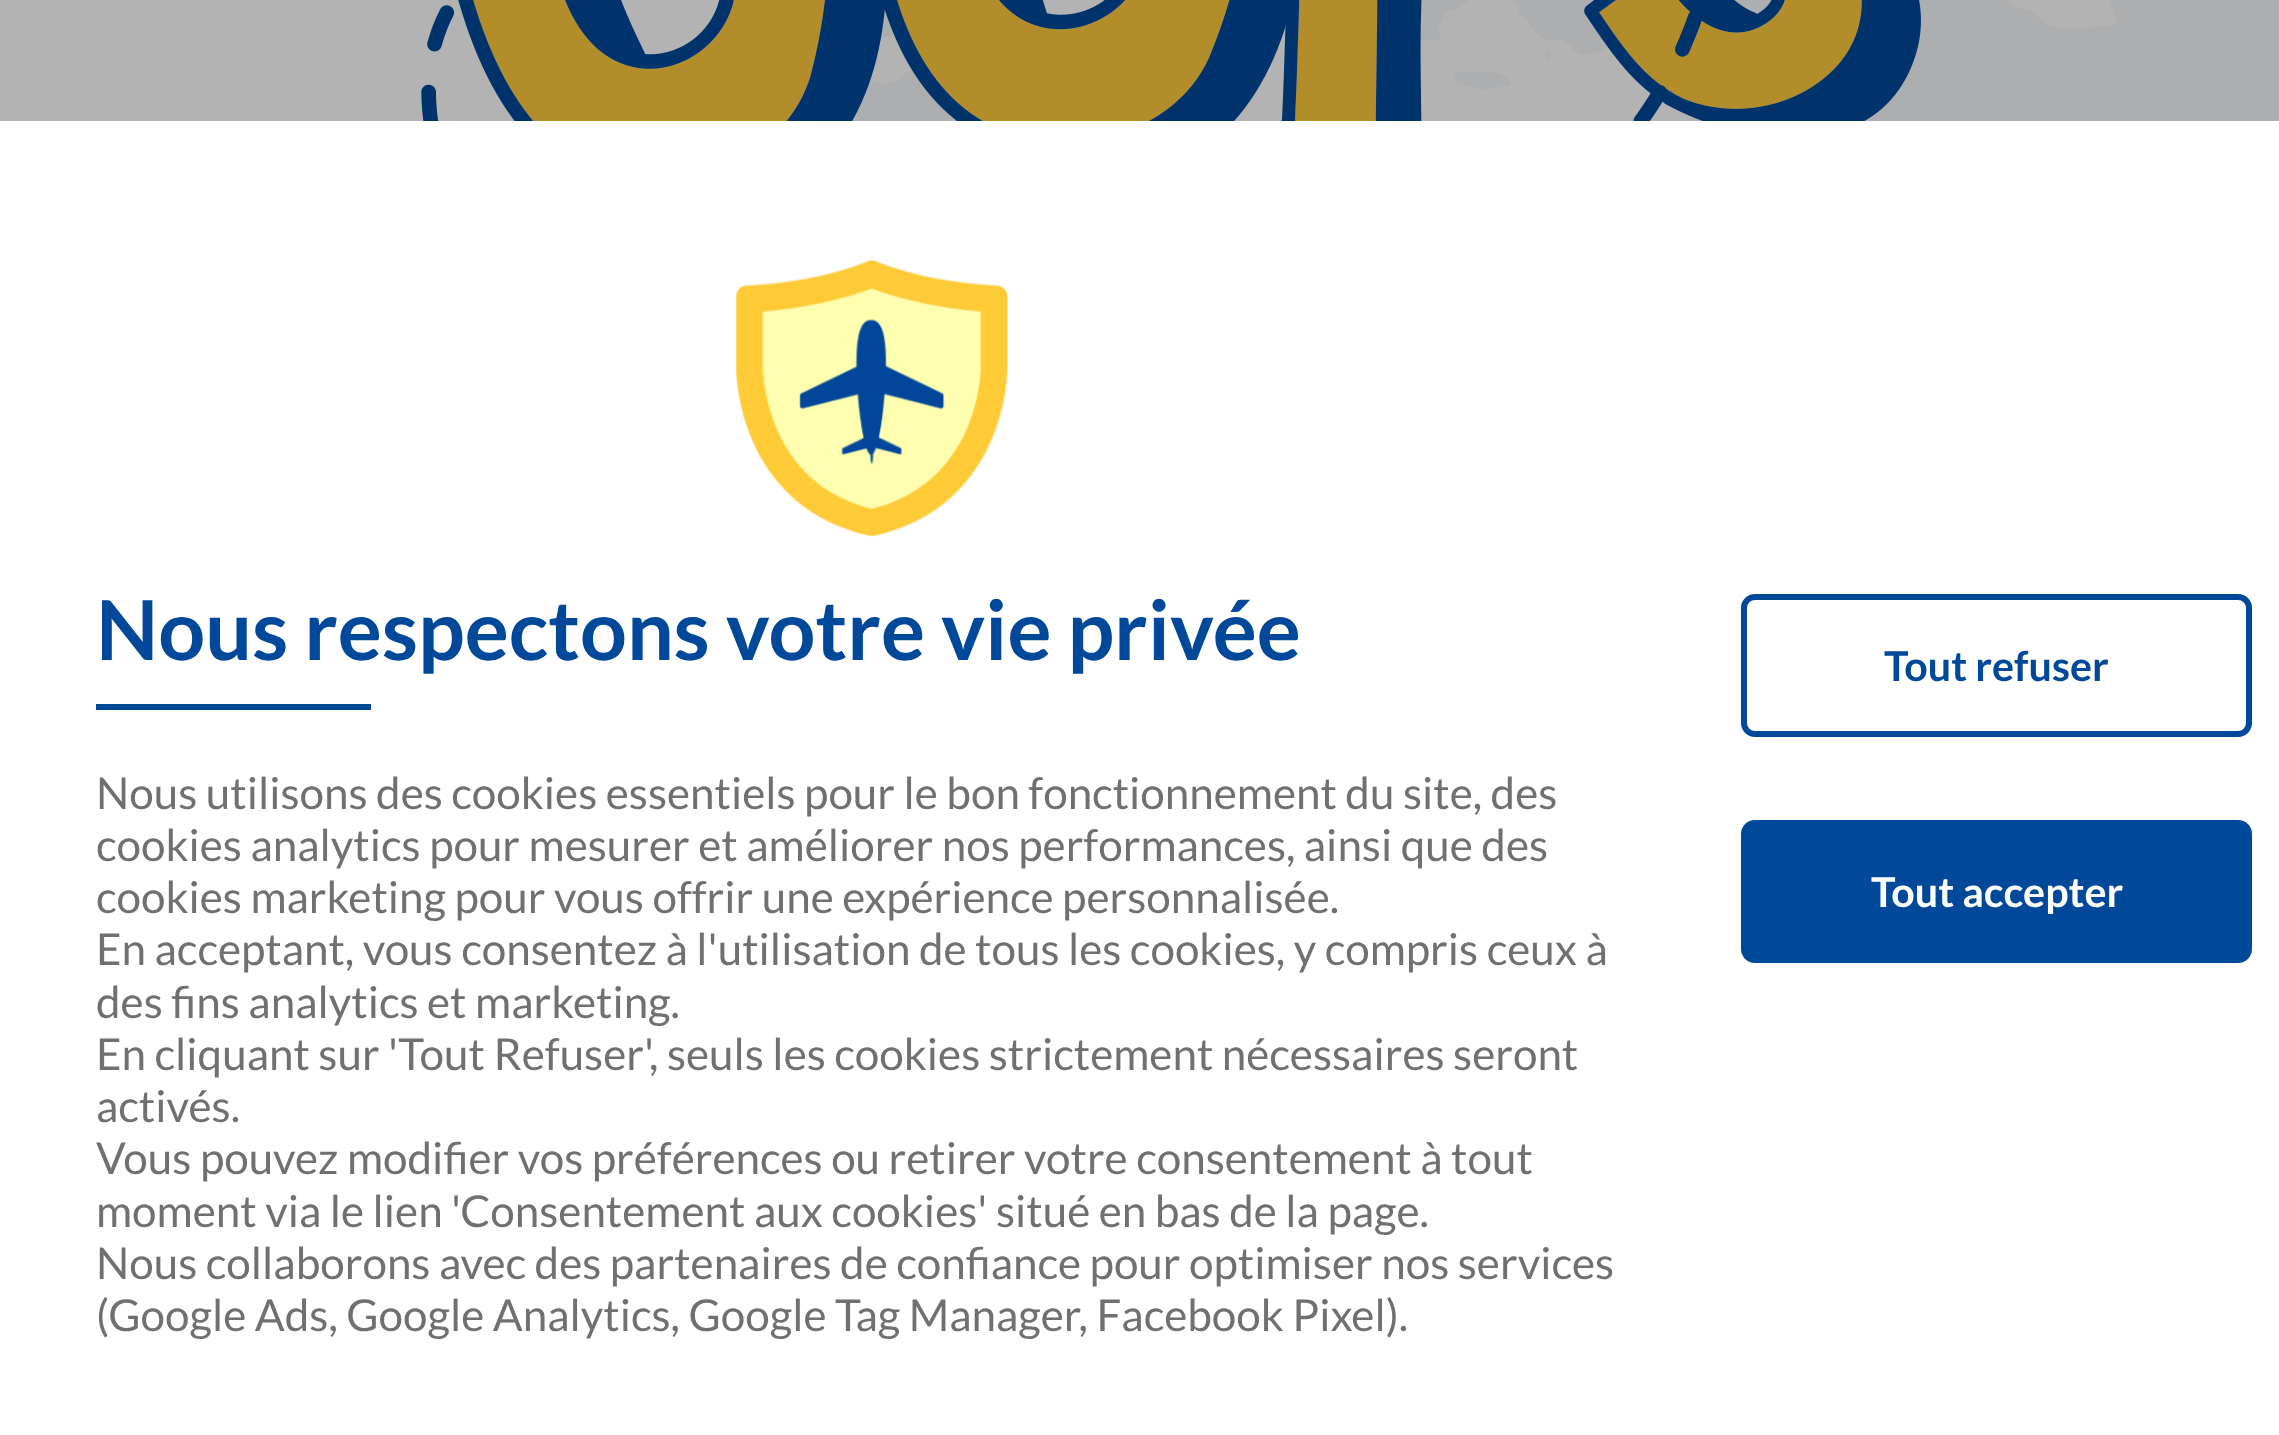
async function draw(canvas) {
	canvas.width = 2279;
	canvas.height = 1435;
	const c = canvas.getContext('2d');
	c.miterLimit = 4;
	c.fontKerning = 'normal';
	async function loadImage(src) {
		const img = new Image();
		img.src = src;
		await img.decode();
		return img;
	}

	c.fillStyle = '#b3b3b3';
	c.fillRect(0, 0, 2279, 1435);
	c.drawImage(await loadImage('img2.png'), 786, 0, 1493, 121);
	c.drawImage(await loadImage('img1.png'), 421, 0, 1500, 121);
	c.fillStyle = '#fff';
	c.fillRect(0, 121, 2279, 1314);
	c.drawImage(await loadImage('img3.png'), 735, 259, 274, 278);
	c.font = 'bold 82.5px Lato';
	c.fillStyle = '#004899';
	c.fillText('Nous respectons votre vie privée', 96, 660);
	c.fillRect(96, 704, 275, 6);
	c.font = '44px Lato';
	c.fillStyle = '#707070';
	for (const [text, x, y] of [
		['Nous utilisons des cookies essentiels pour le bon fonctionnement du site, des', 96, 809],
		['cookies analytics pour mesurer et améliorer nos performances, ainsi que des', 96, 861],
		['cookies marketing pour vous offrir une expérience personnalisée.', 96, 913],
		['En acceptant, vous consentez à l\'utilisation de tous les cookies, y compris ceux à', 96, 965],
		['des fins analytics et marketing.', 96, 1018],
		['En cliquant sur \'Tout Refuser\', seuls les cookies strictement nécessaires seront', 96, 1070],
		['activés.', 96, 1122],
		['Vous pouvez modifier vos préférences ou retirer votre consentement à tout', 96, 1174],
		['moment via le lien \'Consentement aux cookies\' situé en bas de la page.', 96, 1227],
		['Nous collaborons avec des partenaires de confiance pour optimiser nos services', 96, 1279],
		['(Google Ads, Google Analytics, Google Tag Manager, Facebook Pixel).', 96, 1331],
	]) {
		c.fillText(text, x, y);
	}
	c.beginPath();
	c.roundRect(1744, 597, 505, 137, 11);
	c.strokeStyle = '#004899';
	c.lineWidth = 6;
	c.stroke();
	c.font = 'bold 41.25px Lato';
	c.fillStyle = '#004899';
	c.fillText('Tout refuser', 1884, 681);
	c.beginPath();
	c.roundRect(1741, 820, 511, 143, 14);
	c.fill();
	c.fillStyle = '#fff';
	c.fillText('Tout accepter', 1871, 907);
}

draw(document.querySelector('canvas'));
